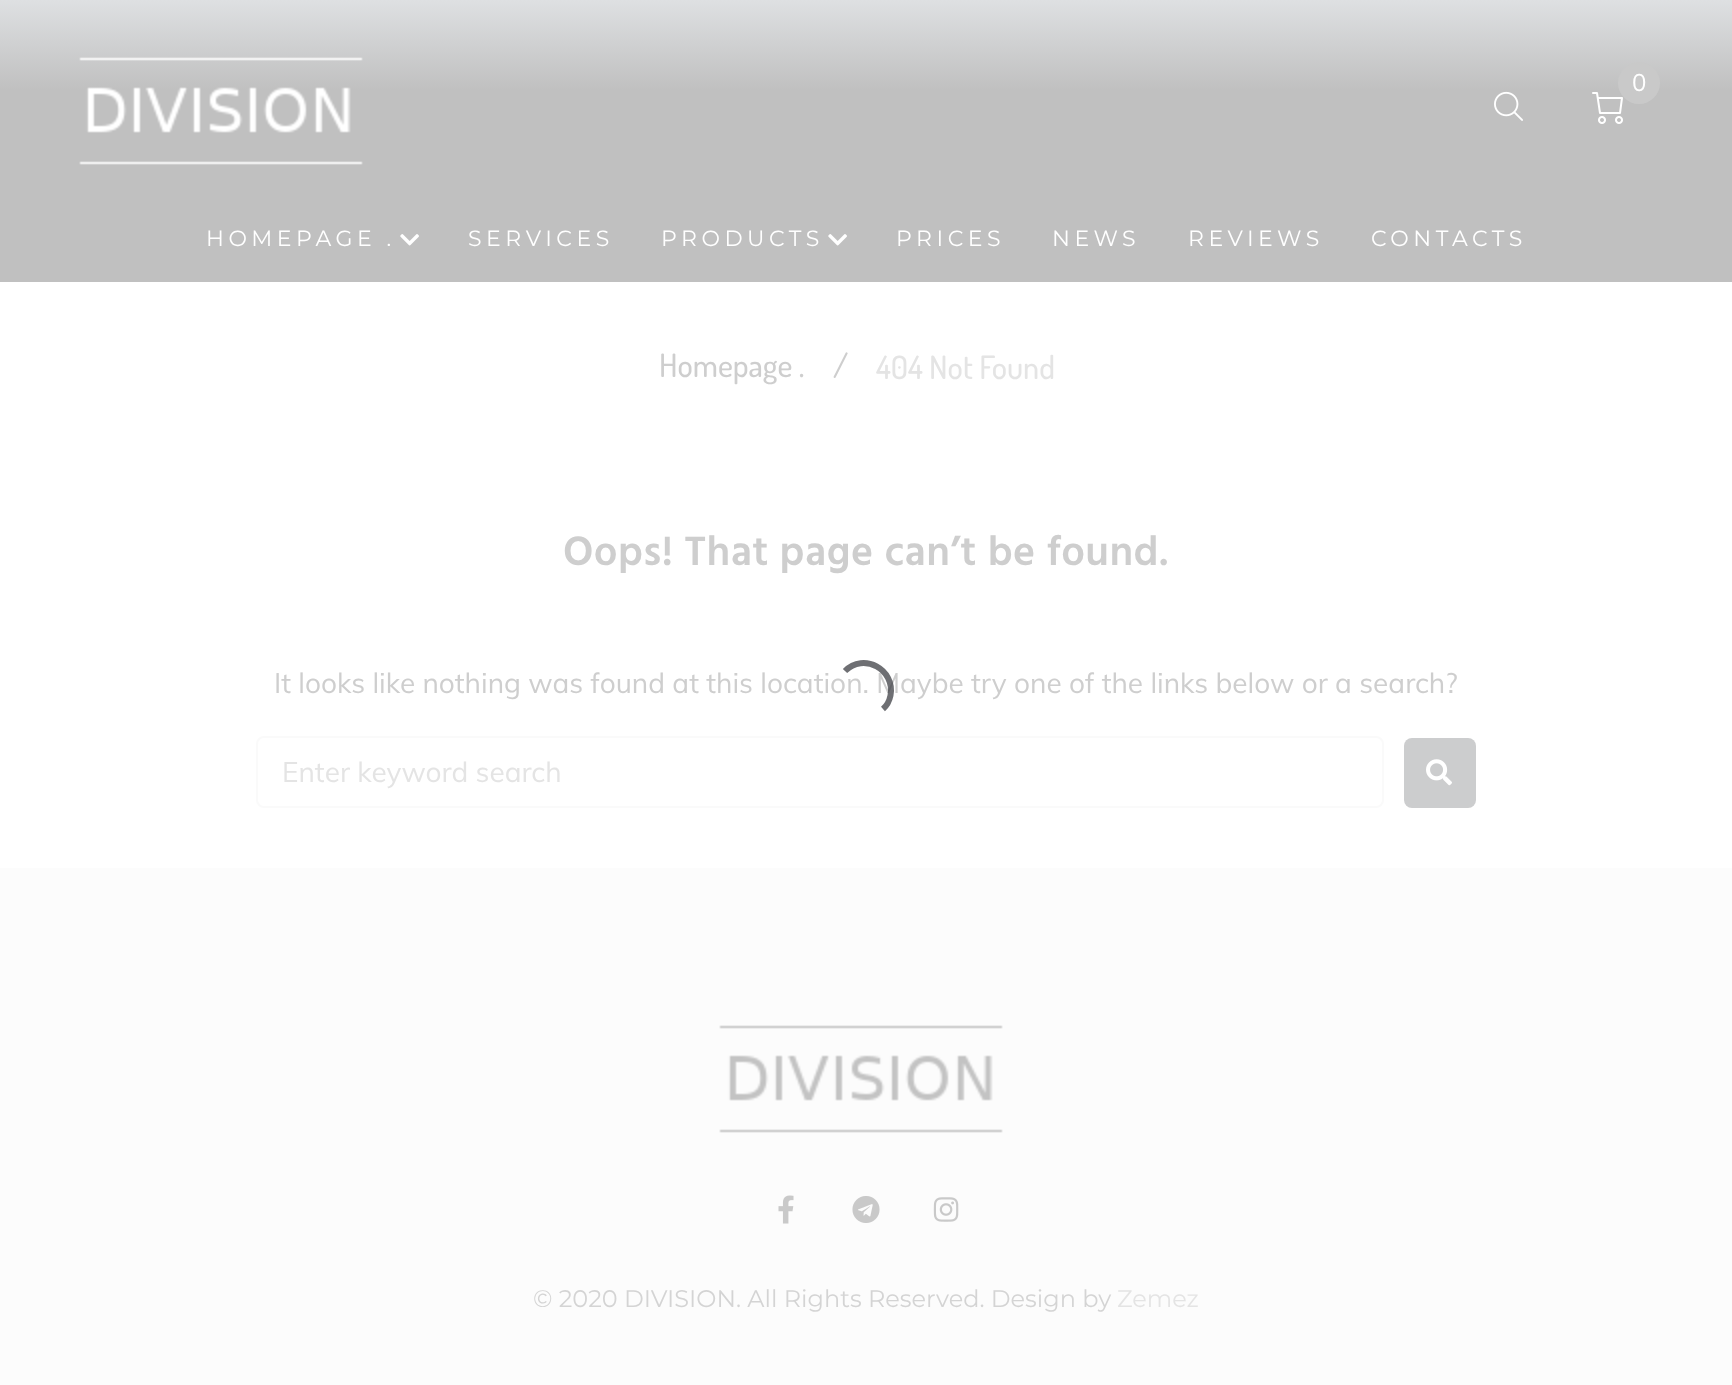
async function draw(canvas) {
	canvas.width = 1732;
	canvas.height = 1385;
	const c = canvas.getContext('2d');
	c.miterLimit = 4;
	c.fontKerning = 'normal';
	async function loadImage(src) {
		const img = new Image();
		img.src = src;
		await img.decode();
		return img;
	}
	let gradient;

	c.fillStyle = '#fff';
	c.fillRect(0, 0, 1732, 1385);
	gradient = c.createLinearGradient(866, 0, 866, 282);
	gradient.addColorStop(0, '#dee0e2');
	gradient.addColorStop(0.32, '#c0c0c0');
	c.fillStyle = gradient;
	c.fillRect(0, 0, 1732, 282);
	c.drawImage(await loadImage('img1.png'), 79, 57, 284, 108);
	c.drawImage(await loadImage('img2.png'), 1592, 92, 31, 32);
	c.fillStyle = '#c9c9c9';
	c.beginPath();
	c.arc(1639, 83, 21, 0, 2 * Math.PI);
	c.fill();
	c.font = '24px Muli';
	c.fillStyle = '#fff';
	c.fillText('0', 1632, 91);
	c.drawImage(await loadImage('img3.png'), 1494, 91, 29, 30);
	c.letterSpacing = '4.5px';
	c.font = '22px Montserrat';
	c.fillText('HOMEPAGE .', 206, 246);
	c.drawImage(await loadImage('img4.png'), 400, 234, 19, 12);
	c.fillText('SERVICES', 468, 246);
	c.fillText('PRODUCTS', 661, 246);
	c.drawImage(await loadImage('img4.png'), 828, 234, 19, 12);
	for (const [text, x, y] of [
		['PRICES', 896, 246],
		['NEWS', 1052, 246],
		['REVIEWS', 1188, 246],
		['CONTACTS', 1371, 246],
	]) {
		c.fillText(text, x, y);
	}
	c.letterSpacing = '0px';
	c.font = '500 32px Dosis';
	c.fillStyle = '#cecece';
	c.fillText('Homepage .', 659, 377);
	c.fillText('/', 833, 377);
	c.fillStyle = '#e4e4e4';
	c.fillText('404 Not Found', 876, 379);
	c.letterSpacing = '0.4px';
	c.font = '600 42px Hind';
	c.fillStyle = '#cecece';
	c.fillText('Oops! That page can’t be found.', 563, 565);
	c.letterSpacing = '0px';
	c.font = '28px Muli';
	c.fillText('It looks like nothing was found at this location. Maybe try one of the links below or a search?', 274, 693);
	c.beginPath();
	c.roundRect(257, 737, 1126, 70, 7);
	c.strokeStyle = '#fafafa';
	c.lineWidth = 2;
	c.stroke();
	c.fillStyle = '#e4e4e4';
	c.fillText('Enter keyword search', 282, 782);
	c.fillStyle = '#cccdce';
	c.beginPath();
	c.roundRect(1404, 738, 72, 70, 8);
	c.fill();
	c.drawImage(await loadImage('img5.png'), 1426, 759, 26, 27);
	c.fillStyle = '#fcfcfc';
	c.fillRect(0, 868, 1732, 517);
	c.drawImage(await loadImage('img6.png'), 719, 1025, 284, 108);
	c.drawImage(await loadImage('img7.png'), 778, 1195, 16, 29);
	c.drawImage(await loadImage('img8.png'), 852, 1196, 28, 27);
	c.drawImage(await loadImage('img9.png'), 933, 1197, 26, 25);
	c.font = '24px Montserrat';
	c.fillStyle = '#d4d4d4';
	c.fillText('© 2020 DIVISION. All Rights Reserved. Design by', 533, 1307);
	c.fillStyle = '#e4e4e4';
	c.fillText('Zemez', 1117, 1307);
	c.beginPath();
	c.moveTo(845, 671);
	c.bezierCurveTo(863.5, 652, 895.5, 669.5, 890.5, 695.5);
	c.bezierCurveTo(889.5, 700.5, 887, 705.5, 883, 709);
	c.strokeStyle = '#3b3d42bd';
	c.lineWidth = 6;
	c.stroke();
}

draw(document.querySelector('canvas'));
